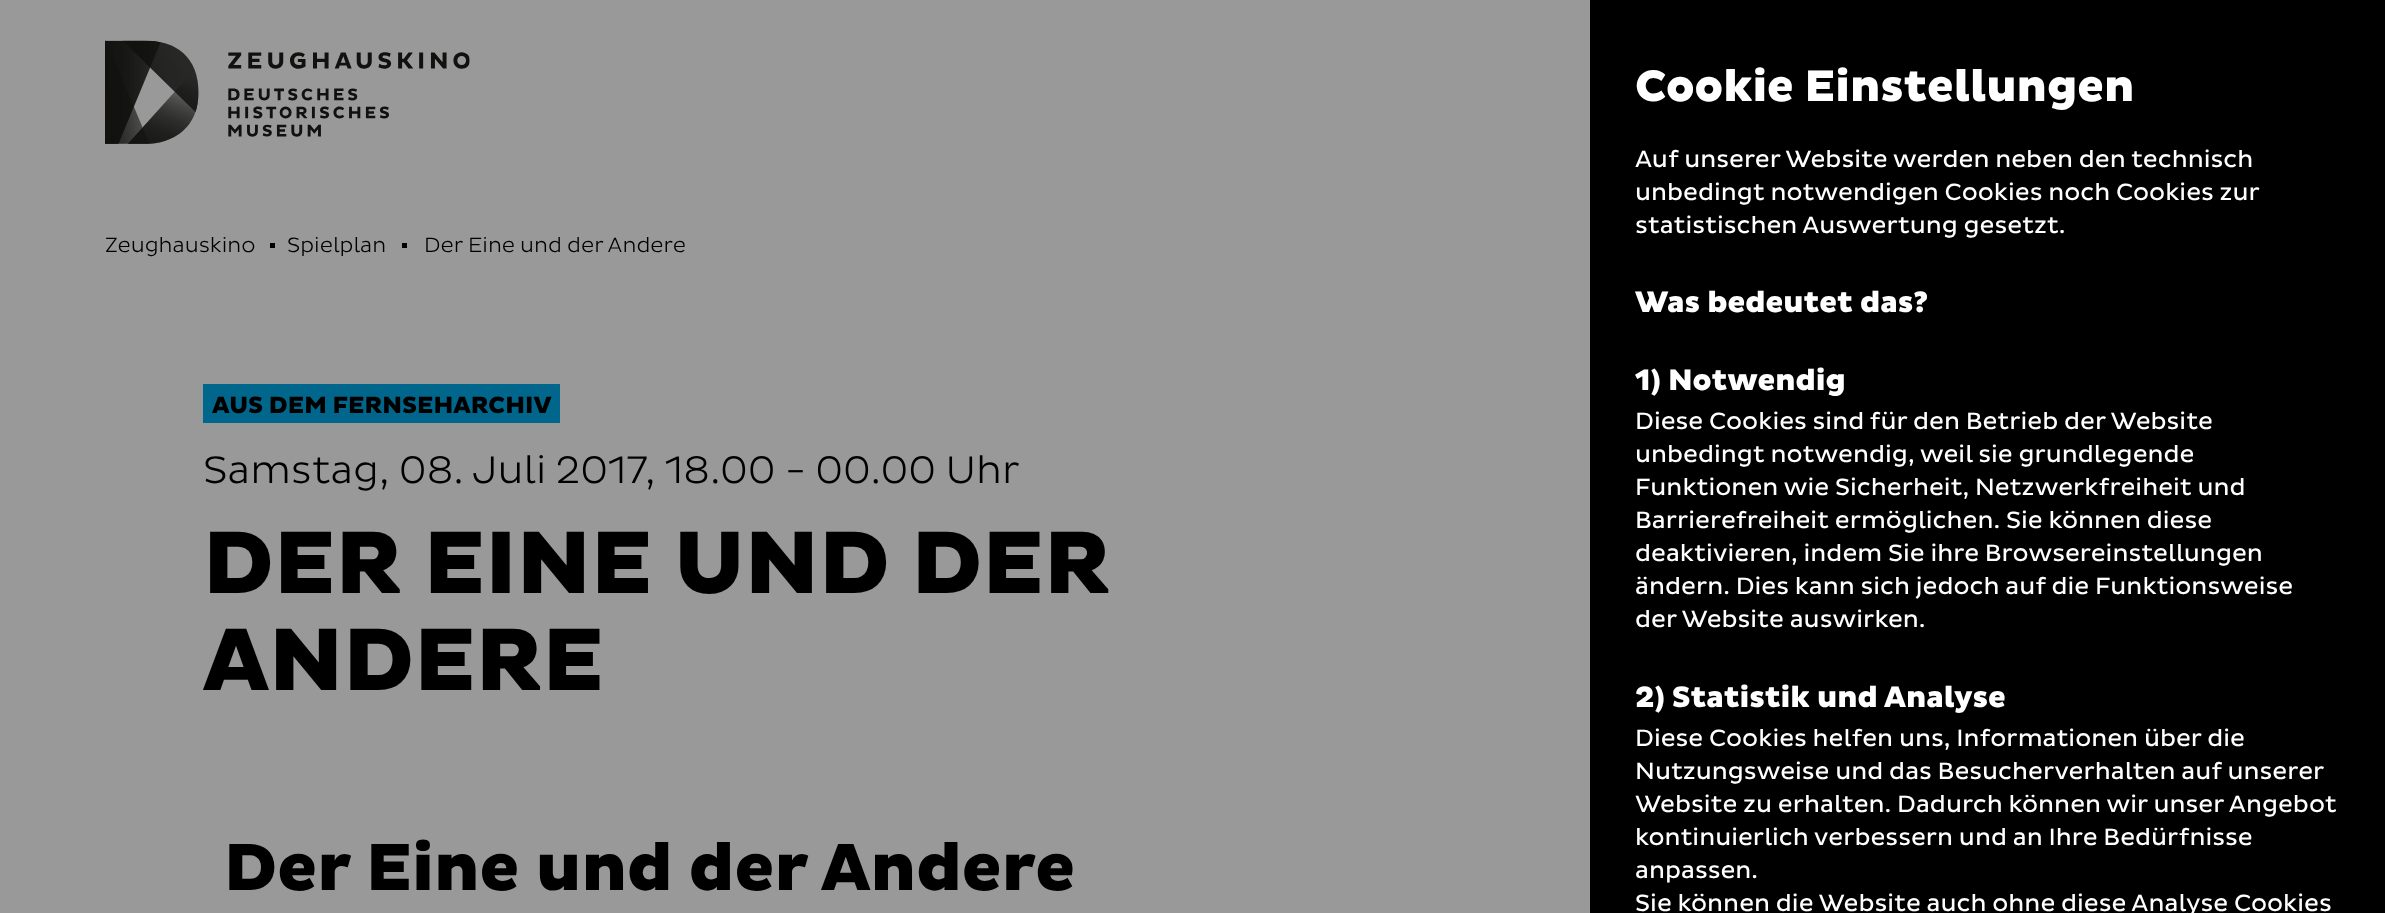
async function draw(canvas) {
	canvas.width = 2385;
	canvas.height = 913;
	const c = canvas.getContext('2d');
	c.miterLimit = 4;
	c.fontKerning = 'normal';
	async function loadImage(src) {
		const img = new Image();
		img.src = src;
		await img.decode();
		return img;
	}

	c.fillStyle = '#999';
	c.fillRect(0, 0, 2385, 913);
	c.drawImage(await loadImage('img1.png'), 105, 40, 365, 104);
	c.fillStyle = '#000';
	c.fillRect(1590, 0, 795, 913);
	c.font = '900 45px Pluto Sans';
	c.fillStyle = '#fff';
	c.fillText('Cookie Einstellungen', 1635, 101);
	c.font = '24px Pluto Sans';
	for (const [text, x, y] of [
		['Auf unserer Website werden neben den technisch', 1635, 167],
		['unbedingt notwendigen Cookies noch Cookies zur', 1635, 200],
		['statistischen Auswertung gesetzt.', 1635, 233],
	]) {
		c.fillText(text, x, y);
	}
	c.font = '900 30px Pluto Sans';
	c.fillText('Was bedeutet das?', 1635, 312);
	c.fillText('1) Notwendig', 1635, 390);
	c.font = '24px Pluto Sans';
	for (const [text, x, y] of [
		['Diese Cookies sind für den Betrieb der Website', 1635, 429],
		['unbedingt notwendig, weil sie grundlegende', 1635, 462],
		['Funktionen wie Sicherheit, Netzwerkfreiheit und', 1635, 495],
		['Barrierefreiheit ermöglichen. Sie können diese', 1635, 528],
		['deaktivieren, indem Sie ihre Browsereinstellungen', 1635, 561],
		['ändern. Dies kann sich jedoch auf die Funktionsweise', 1635, 594],
		['der Website auswirken.', 1635, 627],
	]) {
		c.fillText(text, x, y);
	}
	c.font = '900 30px Pluto Sans';
	c.fillText('2) Statistik und Analyse', 1635, 707);
	c.font = '24px Pluto Sans';
	for (const [text, x, y] of [
		['Diese Cookies helfen uns, Informationen über die', 1635, 746],
		['Nutzungsweise und das Besucherverhalten auf unserer', 1635, 779],
		['Website zu erhalten. Dadurch können wir unser Angebot', 1635, 812],
		['kontinuierlich verbessern und an Ihre Bedürfnisse', 1635, 845],
		['anpassen.', 1635, 878],
		['Sie können die Website auch ohne diese Analyse Cookies', 1635, 911],
	]) {
		c.fillText(text, x, y);
	}
	c.font = '300 21px Pluto Sans';
	c.fillStyle = '#000';
	c.fillText('Zeughauskino', 105, 252);
	c.fillRect(270, 243, 5, 5);
	c.fillText('Spielplan', 287, 252);
	c.fillRect(402, 243, 5, 5);
	c.fillText('Der Eine und der Andere', 424, 252);
	c.fillStyle = '#00668b';
	c.fillRect(203, 384, 357, 39);
	c.font = '900 24px Pluto Sans';
	c.fillStyle = '#000';
	c.fillText('AUS DEM FERNSEHARCHIV', 212, 413);
	c.font = '300 39px Pluto Sans';
	c.fillText('Samstag, 08. Juli 2017, 18.00 - 00.00 Uhr', 203, 483);
	c.font = '900 90px Pluto Sans';
	c.fillText('DER EINE UND DER', 203, 593);
	c.fillText('ANDERE', 203, 690);
	c.font = '900 67.5px Pluto Sans';
	c.fillText('Der Eine und der Andere', 224, 890);
}

draw(document.querySelector('canvas'));
